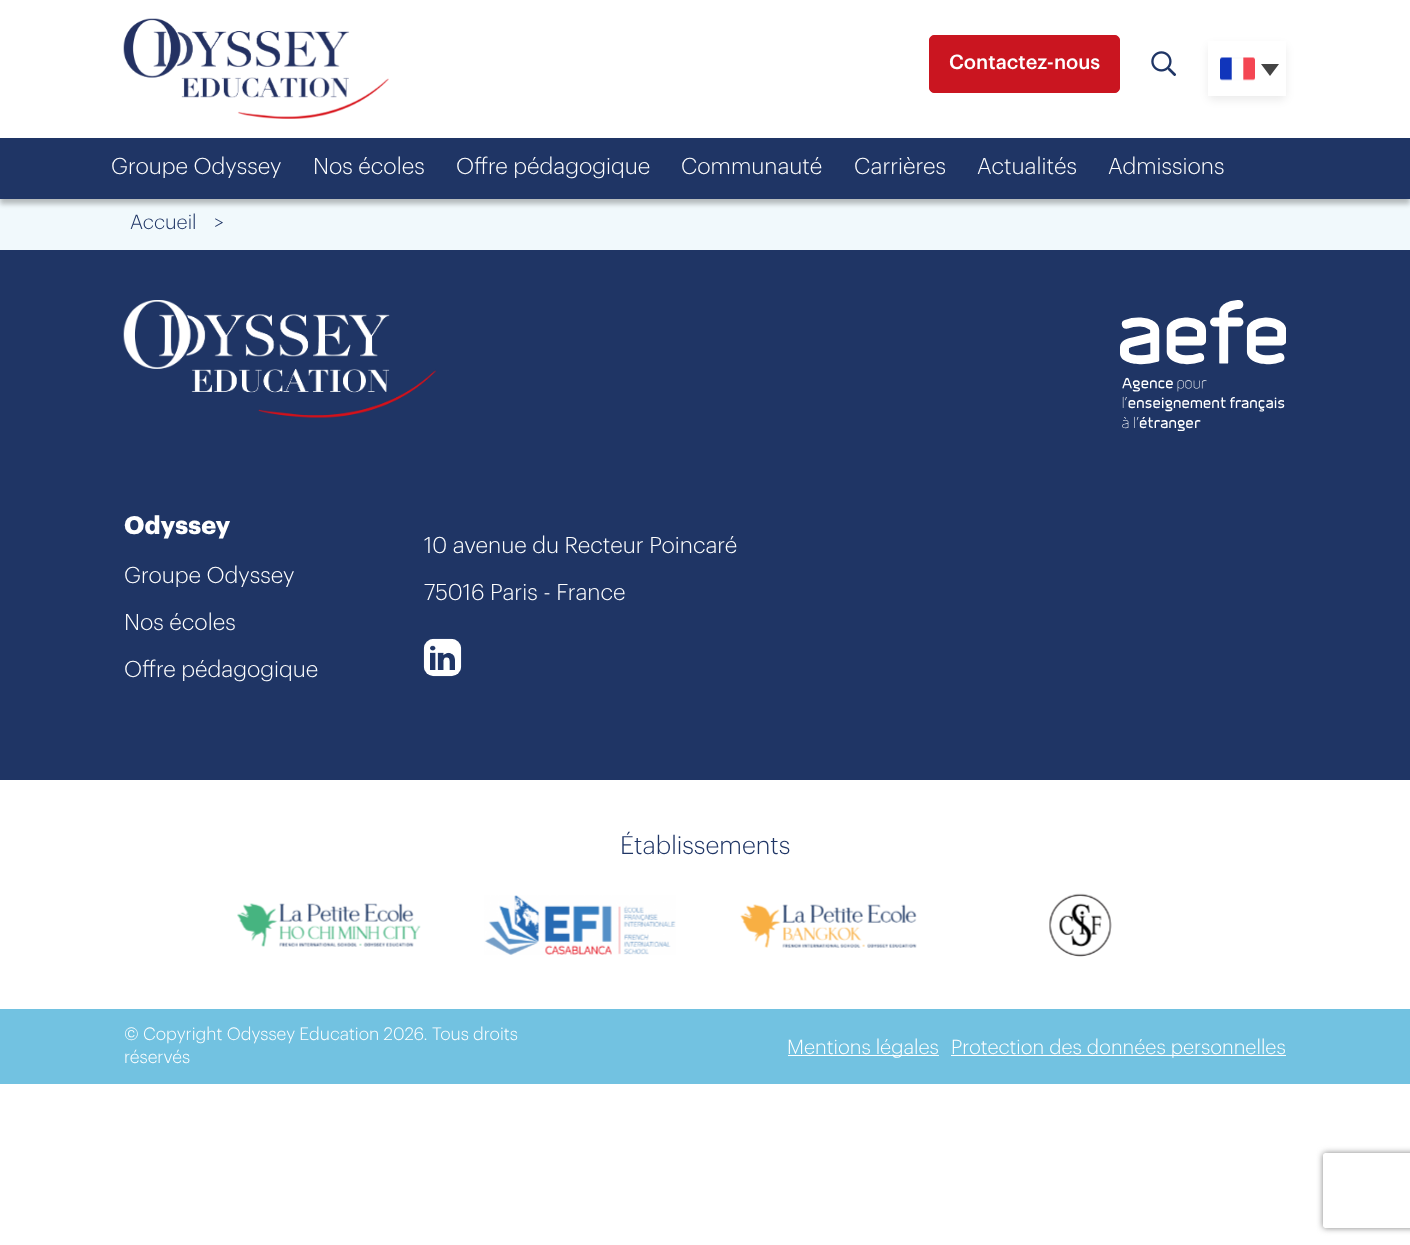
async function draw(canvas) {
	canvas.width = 1410;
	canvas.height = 1245;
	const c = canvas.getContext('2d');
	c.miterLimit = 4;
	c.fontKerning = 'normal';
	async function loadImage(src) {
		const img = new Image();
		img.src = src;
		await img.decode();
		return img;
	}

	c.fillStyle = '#fff';
	c.fillRect(0, 0, 1410, 1245);
	c.drawImage(await loadImage('img1.png'), 123, 18, 266, 101);
	c.fillStyle = '#ca1520';
	c.beginPath();
	c.roundRect(929.5, 35.5, 190, 57, 4.5);
	c.fill();
	c.strokeStyle = '#ca1520';
	c.stroke();
	c.font = '500 20px Graphik';
	c.fillStyle = '#fff';
	c.fillText('Contactez-nous', 949, 69);
	c.drawImage(await loadImage('img2.png'), 1151, 51, 25, 25);
	c.fillStyle = '#00000014';
	c.filter = 'blur(4px)';
	c.beginPath();
	c.roundRect(1208, 45, 78, 55, 5);
	c.fill();
	c.filter = 'none';
	c.fillStyle = '#fff';
	c.fillRect(1208, 41, 78, 55);
	c.drawImage(await loadImage('img3.png'), 1220, 57, 35, 24);
	c.fillStyle = '#444';
	c.beginPath();
	c.moveTo(1261, 64);
	c.lineTo(1279, 64);
	c.lineTo(1270, 76);
	c.closePath();
	c.fill();
	c.fillStyle = '#f1f9fc';
	c.fillRect(0, 199, 1410, 51);
	c.fillStyle = '#00000040';
	c.filter = 'blur(2.5px)';
	c.beginPath();
	c.rect(0, 143, 1410, 61);
	c.fill();
	c.filter = 'none';
	c.fillStyle = '#1f3565';
	c.fillRect(0, 138, 1410, 61);
	c.font = '300 22.5px Graphik';
	c.fillStyle = '#fff';
	for (const [text, x, y] of [
		['Groupe Odyssey', 111, 174],
		['Nos écoles', 313, 174],
		['Offre pédagogique', 456, 174],
		['Communauté', 681, 174],
		['Carrières', 854, 174],
		['Actualités', 977, 174],
		['Admissions', 1108, 174],
	]) {
		c.fillText(text, x, y);
	}
	c.font = '300 20px Graphik';
	c.fillStyle = '#1f3565';
	c.fillText('Accueil', 130, 229);
	c.fillText('>', 214, 229);
	c.fillRect(0, 250, 1410, 530);
	c.drawImage(await loadImage('img4.png'), 123, 300, 314, 118);
	c.drawImage(await loadImage('img5.png'), 1120, 300, 166, 131);
	c.font = 'bold 25px Graphik';
	c.fillStyle = '#fff';
	c.fillText('Odyssey', 124, 534);
	c.font = '300 22.5px Graphik';
	for (const [text, x, y] of [
		['Groupe Odyssey', 124, 583],
		['Nos écoles', 124, 630],
		['Offre pédagogique', 124, 677],
		['10 avenue du Recteur Poincaré', 424, 553],
		['75016 Paris - France', 424, 600],
	]) {
		c.fillText(text, x, y);
	}
	c.drawImage(await loadImage('img6.png'), 423, 638, 39, 39);
	c.font = '300 25px Graphik';
	c.fillStyle = '#1f3565';
	c.fillText('Établissements', 620, 854);
	c.drawImage(await loadImage('img7.png'), 237, 903, 184, 44);
	c.drawImage(await loadImage('img8.png'), 484, 895, 192, 60);
	c.drawImage(await loadImage('img9.png'), 740, 904, 177, 44);
	c.drawImage(await loadImage('img10.png'), 1049, 893, 63, 64);
	c.fillStyle = '#72c2e1';
	c.fillRect(0, 1009, 1410, 75);
	c.font = '300 17.5px Graphik';
	c.fillStyle = '#fff';
	c.fillText('© Copyright Odyssey Education 2026. Tous droits', 124, 1040);
	c.fillText('réservés', 124, 1063);
	c.fillRect(788, 1055, 151, 1);
	c.font = '300 20px Graphik';
	c.fillText('Mentions légales', 787, 1054);
	c.fillRect(951, 1055, 335, 1);
	c.fillText('Protection des données personnelles', 951, 1054);
	c.save();
	c.beginPath();
	c.moveTo(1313, 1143);
	c.lineTo(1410, 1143);
	c.lineTo(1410, 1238);
	c.lineTo(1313, 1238);
	c.closePath();
	c.moveTo(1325.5, 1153);
	c.lineTo(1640.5, 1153);
	c.bezierCurveTo(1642, 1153, 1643, 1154, 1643, 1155.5);
	c.lineTo(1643, 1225.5);
	c.bezierCurveTo(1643, 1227, 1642, 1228, 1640.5, 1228);
	c.lineTo(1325.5, 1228);
	c.bezierCurveTo(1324, 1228, 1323, 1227, 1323, 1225.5);
	c.lineTo(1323, 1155.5);
	c.bezierCurveTo(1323, 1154, 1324, 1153, 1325.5, 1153);
	c.closePath();
	c.clip('evenodd');
	c.fillStyle = '#808080';
	c.filter = 'blur(3px)';
	c.beginPath();
	c.roundRect(1323, 1153, 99, 75, 2.5);
	c.fill();
	c.filter = 'none';
	c.restore();
}

draw(document.querySelector('canvas'));
